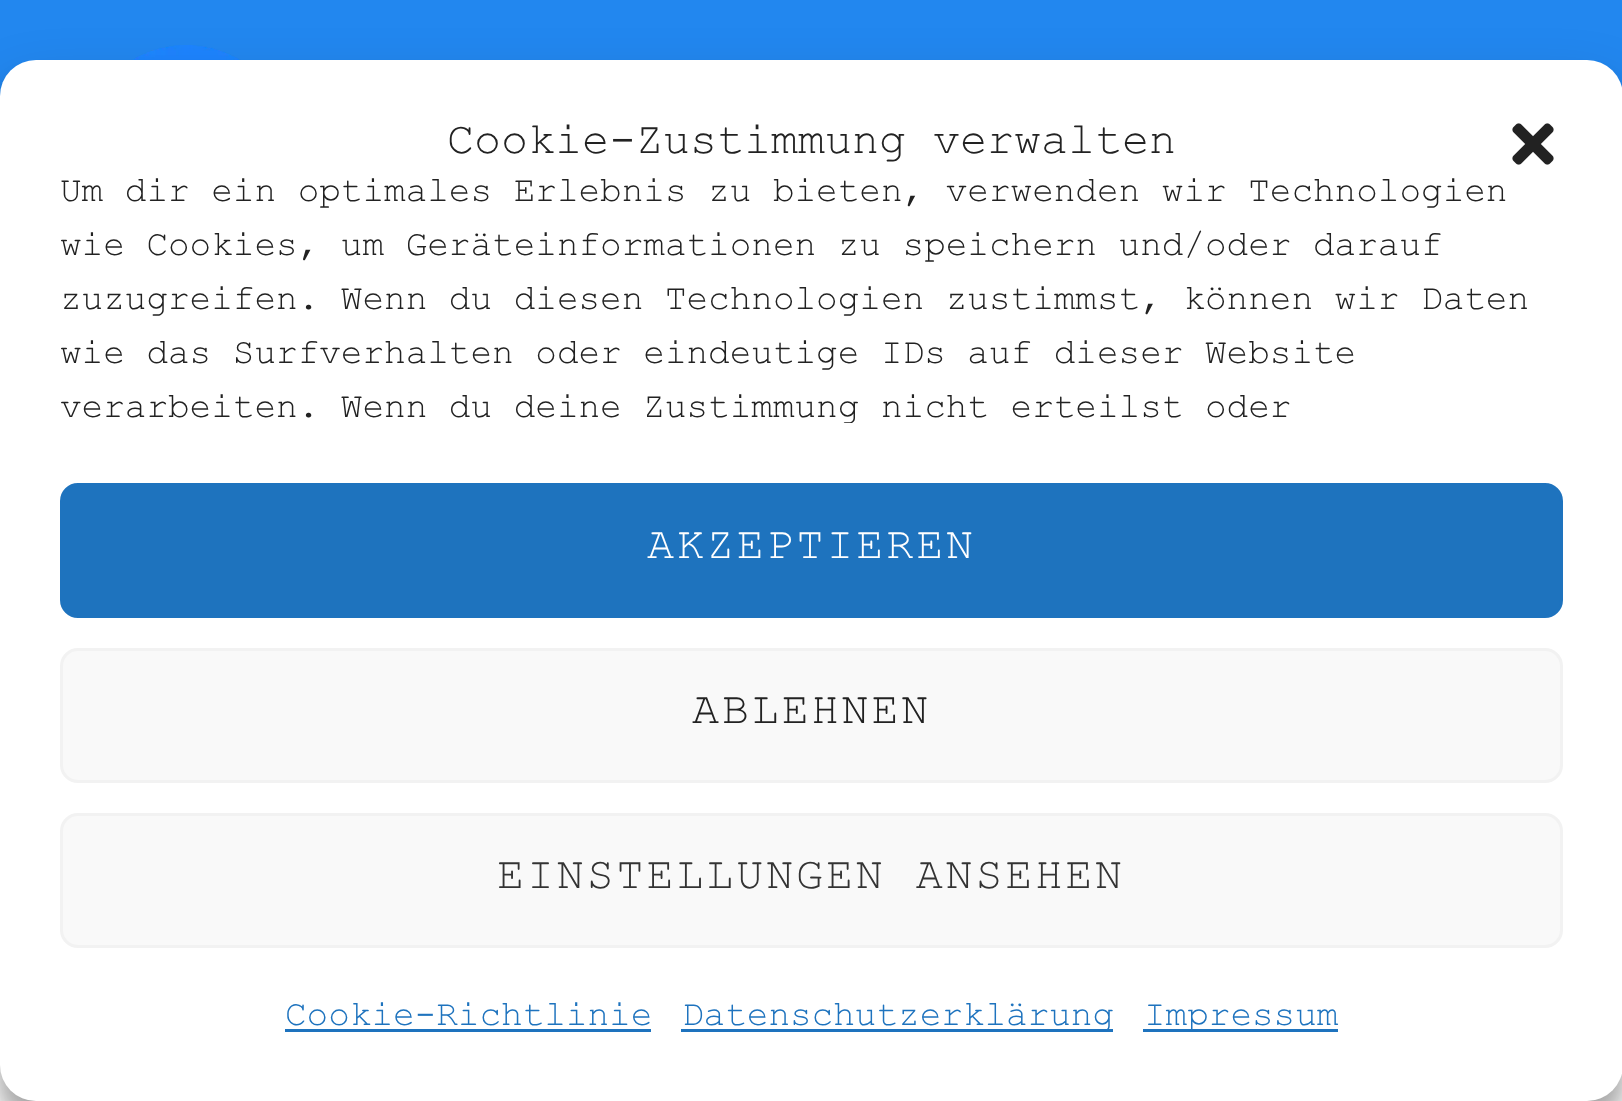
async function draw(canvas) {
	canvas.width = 1622;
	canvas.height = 1101;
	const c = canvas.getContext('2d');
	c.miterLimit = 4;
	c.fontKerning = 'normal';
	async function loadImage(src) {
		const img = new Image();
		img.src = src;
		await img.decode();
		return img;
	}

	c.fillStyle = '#fff';
	c.fillRect(0, 0, 1622, 1101);
	c.fillStyle = '#2287ef';
	c.fillRect(0, 0, 1622, 96);
	c.drawImage(await loadImage('img1.png'), 131, 45, 110, 15);
	c.fillStyle = '#0000003b';
	c.filter = 'blur(9px)';
	c.beginPath();
	c.roundRect(0, 78, 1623, 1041, 36);
	c.fill();
	c.filter = 'none';
	c.fillStyle = '#00000030';
	c.filter = 'blur(30px)';
	c.beginPath();
	c.roundRect(0, 90, 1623, 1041, 36);
	c.fill();
	c.filter = 'none';
	c.fillStyle = '#fff';
	c.beginPath();
	c.roundRect(0, 60, 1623, 1041, 36);
	c.fill();
	c.font = '45px Courier New';
	c.fillStyle = '#222';
	c.fillText('Cookie-Zustimmung verwalten', 447, 153);
	c.drawImage(await loadImage('img2.png'), 1512, 123, 42, 42);
	c.font = '36px Courier New';
	for (const [text, x, y] of [
		['Um dir ein optimales Erlebnis zu bieten, verwenden wir Technologien', 60, 201],
		['wie Cookies, um Geräteinformationen zu speichern und/oder darauf', 60, 255],
		['zuzugreifen. Wenn du diesen Technologien zustimmst, können wir Daten', 60, 309],
		['wie das Surfverhalten oder eindeutige IDs auf dieser Website', 60, 363],
	]) {
		c.fillText(text, x, y);
	}
	c.save();
	c.beginPath();
	c.rect(60, 165, 1503, 258);
	c.clip();
	c.fillText('verarbeiten. Wenn du deine Zustimmung nicht erteilst oder', 60, 417);
	c.restore();
	c.fillStyle = '#1e73be';
	c.beginPath();
	c.roundRect(61.5, 484.5, 1500, 132, 16.5);
	c.fill();
	c.strokeStyle = '#1e73be';
	c.lineWidth = 3;
	c.stroke();
	c.letterSpacing = '2.9px';
	c.font = '45px Courier New';
	c.fillStyle = '#fff';
	c.fillText('AKZEPTIEREN', 647, 558);
	c.fillStyle = '#f9f9f9';
	c.beginPath();
	c.roundRect(61.5, 649.5, 1500, 132, 16.5);
	c.fill();
	c.strokeStyle = '#f2f2f2';
	c.stroke();
	c.fillStyle = '#222';
	c.fillText('ABLEHNEN', 692, 723);
	c.fillStyle = '#f9f9f9';
	c.beginPath();
	c.roundRect(61.5, 814.5, 1500, 132, 16.5);
	c.fill();
	c.stroke();
	c.fillStyle = '#333';
	c.fillText('EINSTELLUNGEN ANSEHEN', 497, 888);
	c.letterSpacing = '0px';
	c.font = '36px Courier New';
	c.fillStyle = '#1e73be';
	c.fillText('Cookie-Richtlinie', 285, 1025);
	c.fillRect(285, 1029, 366, 3);
	c.fillRect(681, 1029, 432, 3);
	c.fillText('Datenschutzerklärung', 682, 1025);
	c.fillRect(1143, 1029, 195, 3);
	c.fillText('Impressum', 1144, 1025);
}

draw(document.querySelector('canvas'));
